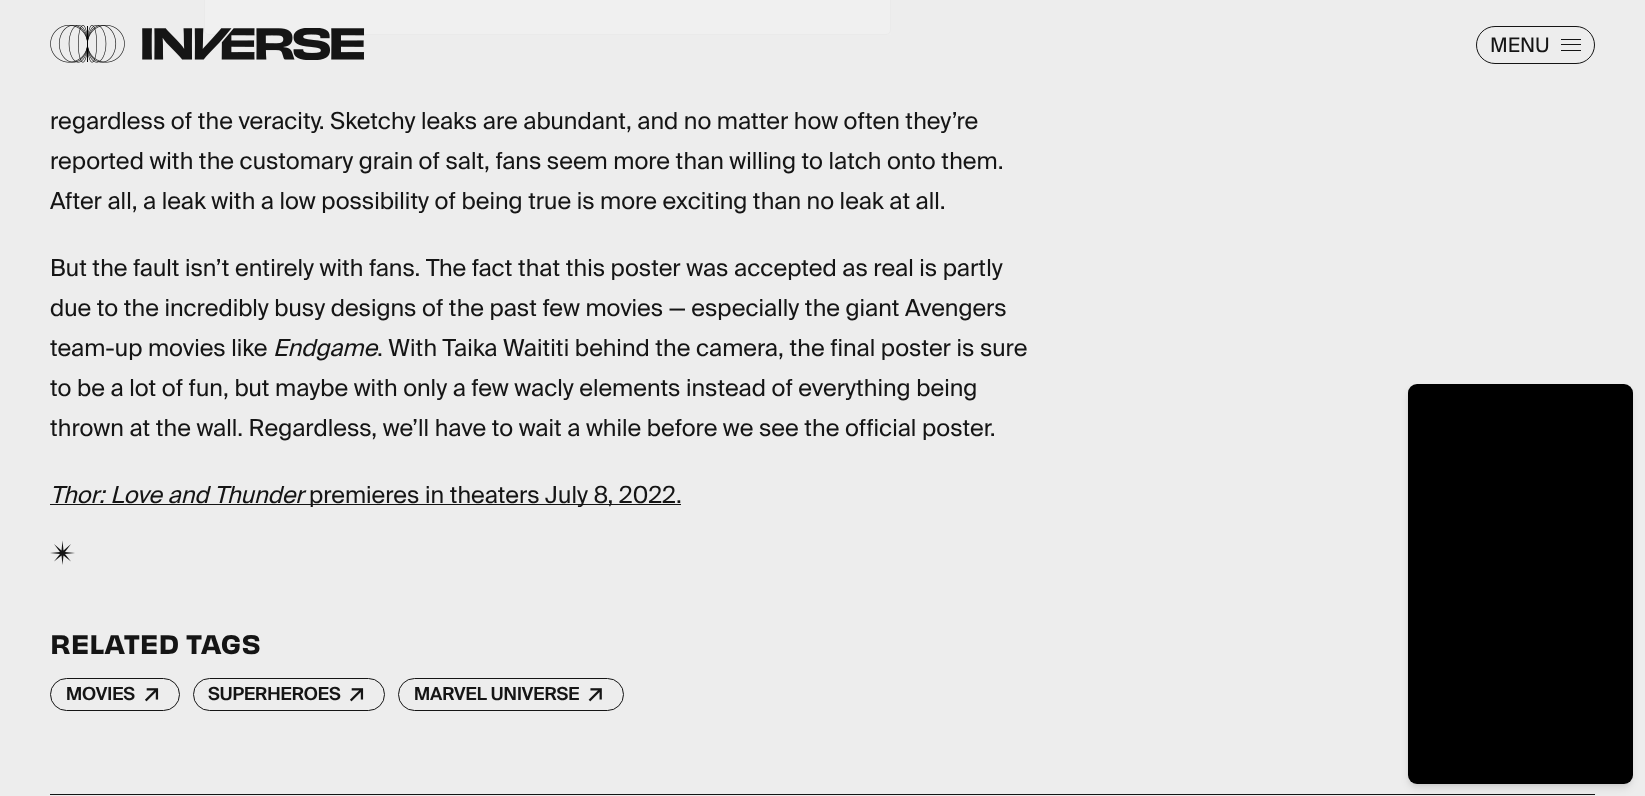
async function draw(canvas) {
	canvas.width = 1645;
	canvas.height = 796;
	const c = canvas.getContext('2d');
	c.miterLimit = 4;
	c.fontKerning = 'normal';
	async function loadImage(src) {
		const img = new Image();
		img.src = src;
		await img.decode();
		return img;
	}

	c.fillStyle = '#ededed';
	c.fillRect(0, 0, 1645, 796);
	c.fillStyle = '#fafafa';
	c.beginPath();
	c.roundRect(204.5, -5.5, 686, 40, 4.5);
	c.fill();
	c.strokeStyle = '#dbdbdb';
	c.stroke();
	c.fillStyle = '#edededcc';
	c.fillRect(204, 0, 687, 35);
	c.drawImage(await loadImage('img1.png'), 50, 25, 75, 38);
	c.drawImage(await loadImage('img2.png'), 142, 28, 223, 32);
	c.beginPath();
	c.roundRect(1476.5, 26.5, 118, 37, 18.5);
	c.strokeStyle = '#151515';
	c.stroke();
	c.font = '20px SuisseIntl';
	c.fillStyle = '#151515';
	c.fillText('MENU', 1490, 52);
	for (const [x, y, w, h, color] of [
		[1561, 39, 20, 1, '#151515'],
		[1561, 50, 20, 1, '#151515'],
		[1561, 44, 20, 1, '#151515'],
	]) {
		c.fillStyle = color;
		c.fillRect(x, y, w, h);
	}
	c.font = '23.5px SuisseIntl';
	for (const [text, x, y] of [
		['regardless of the veracity. Sketchy leaks are abundant, and no matter how often they’re', 50, 129],
		['reported with the customary grain of salt, fans seem more than willing to latch onto them.', 50, 169],
		['After all, a leak with a low possibility of being true is more exciting than no leak at all.', 50, 209],
		['But the fault isn’t entirely with fans. The fact that this poster was accepted as real is partly', 50, 276],
		['due to the incredibly busy designs of the past few movies — especially the giant Avengers', 50, 316],
		['team-up movies like', 50, 356],
	]) {
		c.fillText(text, x, y);
	}
	c.font = 'italic 23.5px SuisseIntl';
	c.fillText('Endgame', 273, 356);
	c.font = '23.5px SuisseIntl';
	for (const [text, x, y] of [
		['. With Taika Waititi behind the camera, the final poster is sure', 377, 356],
		['to be a lot of fun, but maybe with only a few wacly elements instead of everything being', 50, 396],
		['thrown at the wall. Regardless, we’ll have to wait a while before we see the official poster.', 50, 436],
	]) {
		c.fillText(text, x, y);
	}
	c.font = 'italic 23.5px SuisseIntl';
	c.fillText('Thor: Love and Thunder', 50, 503);
	c.fillRect(50, 504, 631, 1);
	c.font = '23.5px SuisseIntl';
	c.fillText('premieres in theaters July 8, 2022.', 309, 503);
	c.beginPath();
	c.moveTo(62.5, 540.5);
	c.lineTo(63.5, 550.5);
	c.lineTo(71, 544);
	c.lineTo(65, 552);
	c.lineTo(75, 553);
	c.lineTo(65, 554);
	c.lineTo(71, 561.5);
	c.lineTo(63.5, 555.5);
	c.lineTo(62.5, 565);
	c.lineTo(61.5, 555.5);
	c.lineTo(54, 561.5);
	c.lineTo(60, 554);
	c.lineTo(50, 553);
	c.lineTo(60, 552);
	c.lineTo(54, 544);
	c.lineTo(61.5, 550.5);
	c.closePath();
	c.fill();
	c.font = '600 25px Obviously';
	c.fillText('RELATED TAGS', 50, 654);
	c.beginPath();
	c.roundRect(50.5, 678.5, 129, 32, 16);
	c.stroke();
	c.font = '600 18px SuisseIntl';
	c.fillText('MOVIES', 66, 700);
	c.drawImage(await loadImage('img3.png'), 145, 688, 14, 14);
	c.beginPath();
	c.roundRect(193.5, 678.5, 191, 32, 16);
	c.stroke();
	c.fillText('SUPERHEROES', 208, 700);
	c.drawImage(await loadImage('img3.png'), 350, 688, 14, 14);
	c.beginPath();
	c.roundRect(398.5, 678.5, 225, 32, 16);
	c.stroke();
	c.fillText('MARVEL UNIVERSE', 414, 700);
	c.drawImage(await loadImage('img4.png'), 588, 688, 14, 14);
	c.fillStyle = '#0000001a';
	c.filter = 'blur(2.5px)';
	c.beginPath();
	c.roundRect(1410, 389, 220, 395, 6);
	c.fill();
	c.filter = 'none';
	c.fillStyle = '#151515';
	c.fillRect(50, 794, 1545, 1);
	c.fillStyle = '#0000001a';
	c.filter = 'blur(4px)';
	c.beginPath();
	c.roundRect(1409, 390, 222, 398, 8);
	c.fill();
	c.filter = 'none';
	c.fillStyle = '#000';
	c.beginPath();
	c.roundRect(1408, 384, 225, 400, 9);
	c.fill();
}

draw(document.querySelector('canvas'));
